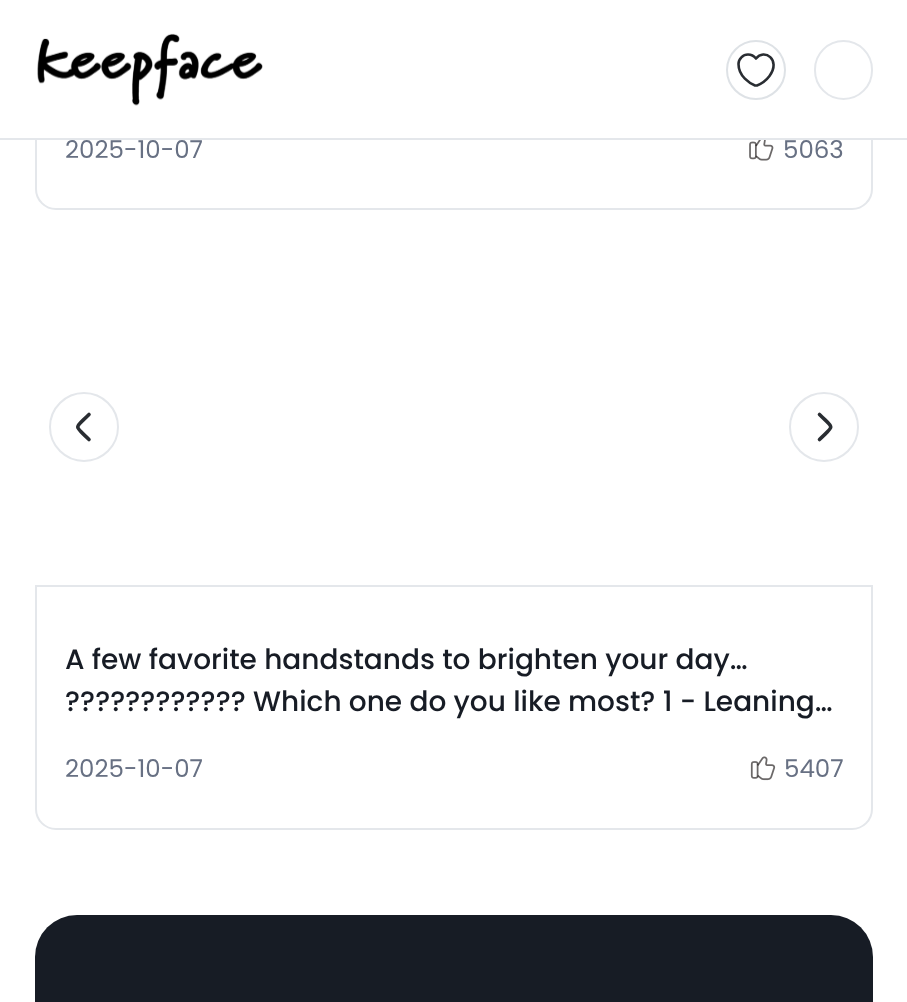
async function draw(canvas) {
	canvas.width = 907;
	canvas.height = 1002;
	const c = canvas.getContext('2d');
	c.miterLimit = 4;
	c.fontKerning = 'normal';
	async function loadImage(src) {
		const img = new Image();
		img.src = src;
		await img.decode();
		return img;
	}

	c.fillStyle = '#fff';
	c.fillRect(0, 0, 907, 1002);
	c.beginPath();
	c.moveTo(36, -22);
	c.lineTo(872, -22);
	c.lineTo(872, 189);
	c.bezierCurveTo(872, 200, 863, 209, 852, 209);
	c.lineTo(56, 209);
	c.bezierCurveTo(45, 209, 36, 200, 36, 189);
	c.closePath();
	c.strokeStyle = '#e4e7eb';
	c.lineWidth = 2;
	c.stroke();
	c.fillRect(35, 0, 838, 138);
	c.font = '24.5px Poppins';
	c.fillStyle = '#677083';
	c.fillText('5063', 783, 158);
	c.fillStyle = '#e4e7eb';
	c.fillRect(0, 138, 907, 2);
	c.drawImage(await loadImage('img1.png'), 37, 33, 226, 73);
	c.beginPath();
	c.arc(756, 70, 29, 0, 2 * Math.PI);
	c.strokeStyle = '#dee2e6';
	c.stroke();
	c.beginPath();
	c.moveTo(757, 85.5);
	c.bezierCurveTo(756.5, 85.5, 755.5, 85.5, 755, 85.5);
	c.bezierCurveTo(750, 83.5, 738.5, 76.5, 738.5, 64);
	c.bezierCurveTo(738.5, 59, 743, 54.5, 748, 54.5);
	c.bezierCurveTo(751.5, 54.5, 754, 56, 756, 58.5);
	c.bezierCurveTo(764, 48, 781.5, 59.5, 769.5, 76);
	c.bezierCurveTo(766.5, 80, 762, 83.5, 757, 85.5);
	c.closePath();
	c.strokeStyle = '#292d32';
	c.lineWidth = 2.6;
	c.lineCap = 'round';
	c.lineJoin = 'round';
	c.stroke();
	c.beginPath();
	c.roundRect(815, 41, 57, 58, 28.5);
	c.strokeStyle = '#e4e7eb';
	c.lineWidth = 2;
	c.lineJoin = 'miter';
	c.stroke();
	c.fillStyle = '#677083';
	c.fillText('2025-10-07', 65, 158);
	c.drawImage(await loadImage('img2.png'), 749, 140, 25, 21);
	c.beginPath();
	c.arc(84, 427, 34, 0, 2 * Math.PI);
	c.stroke();
	c.beginPath();
	c.moveTo(89, 439.5);
	c.bezierCurveTo(74, 424.5, 74, 429.5, 89, 414.5);
	c.strokeStyle = '#292d32';
	c.lineWidth = 3.6;
	c.lineJoin = 'round';
	c.stroke();
	c.beginPath();
	c.arc(824, 427, 34, 0, 2 * Math.PI);
	c.strokeStyle = '#e4e7eb';
	c.lineWidth = 2;
	c.stroke();
	c.beginPath();
	c.moveTo(819.5, 439.5);
	c.bezierCurveTo(834.5, 424.5, 834.5, 429.5, 819.5, 414.5);
	c.strokeStyle = '#292d32';
	c.lineWidth = 3.6;
	c.stroke();
	c.beginPath();
	c.roundRect(36, 586, 836, 243, [0, 0, 20, 20]);
	c.strokeStyle = '#e4e7eb';
	c.lineWidth = 2;
	c.lineJoin = 'miter';
	c.stroke();
	c.font = '500 28px Poppins';
	c.fillStyle = '#171c25';
	c.fillText('A few favorite handstands to brighten your day…', 65, 669);
	c.fillText('???????????? Which one do you like most? 1 - Leaning…', 65, 711);
	c.font = '24.5px Poppins';
	c.fillStyle = '#677083';
	c.fillText('2025-10-07', 65, 777);
	c.drawImage(await loadImage('img3.png'), 750, 756, 26, 25);
	c.fillText('5407', 784, 777);
	c.fillStyle = '#171c25';
	c.beginPath();
	c.roundRect(35, 915, 838, 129, 42);
	c.fill();
}

draw(document.querySelector('canvas'));
